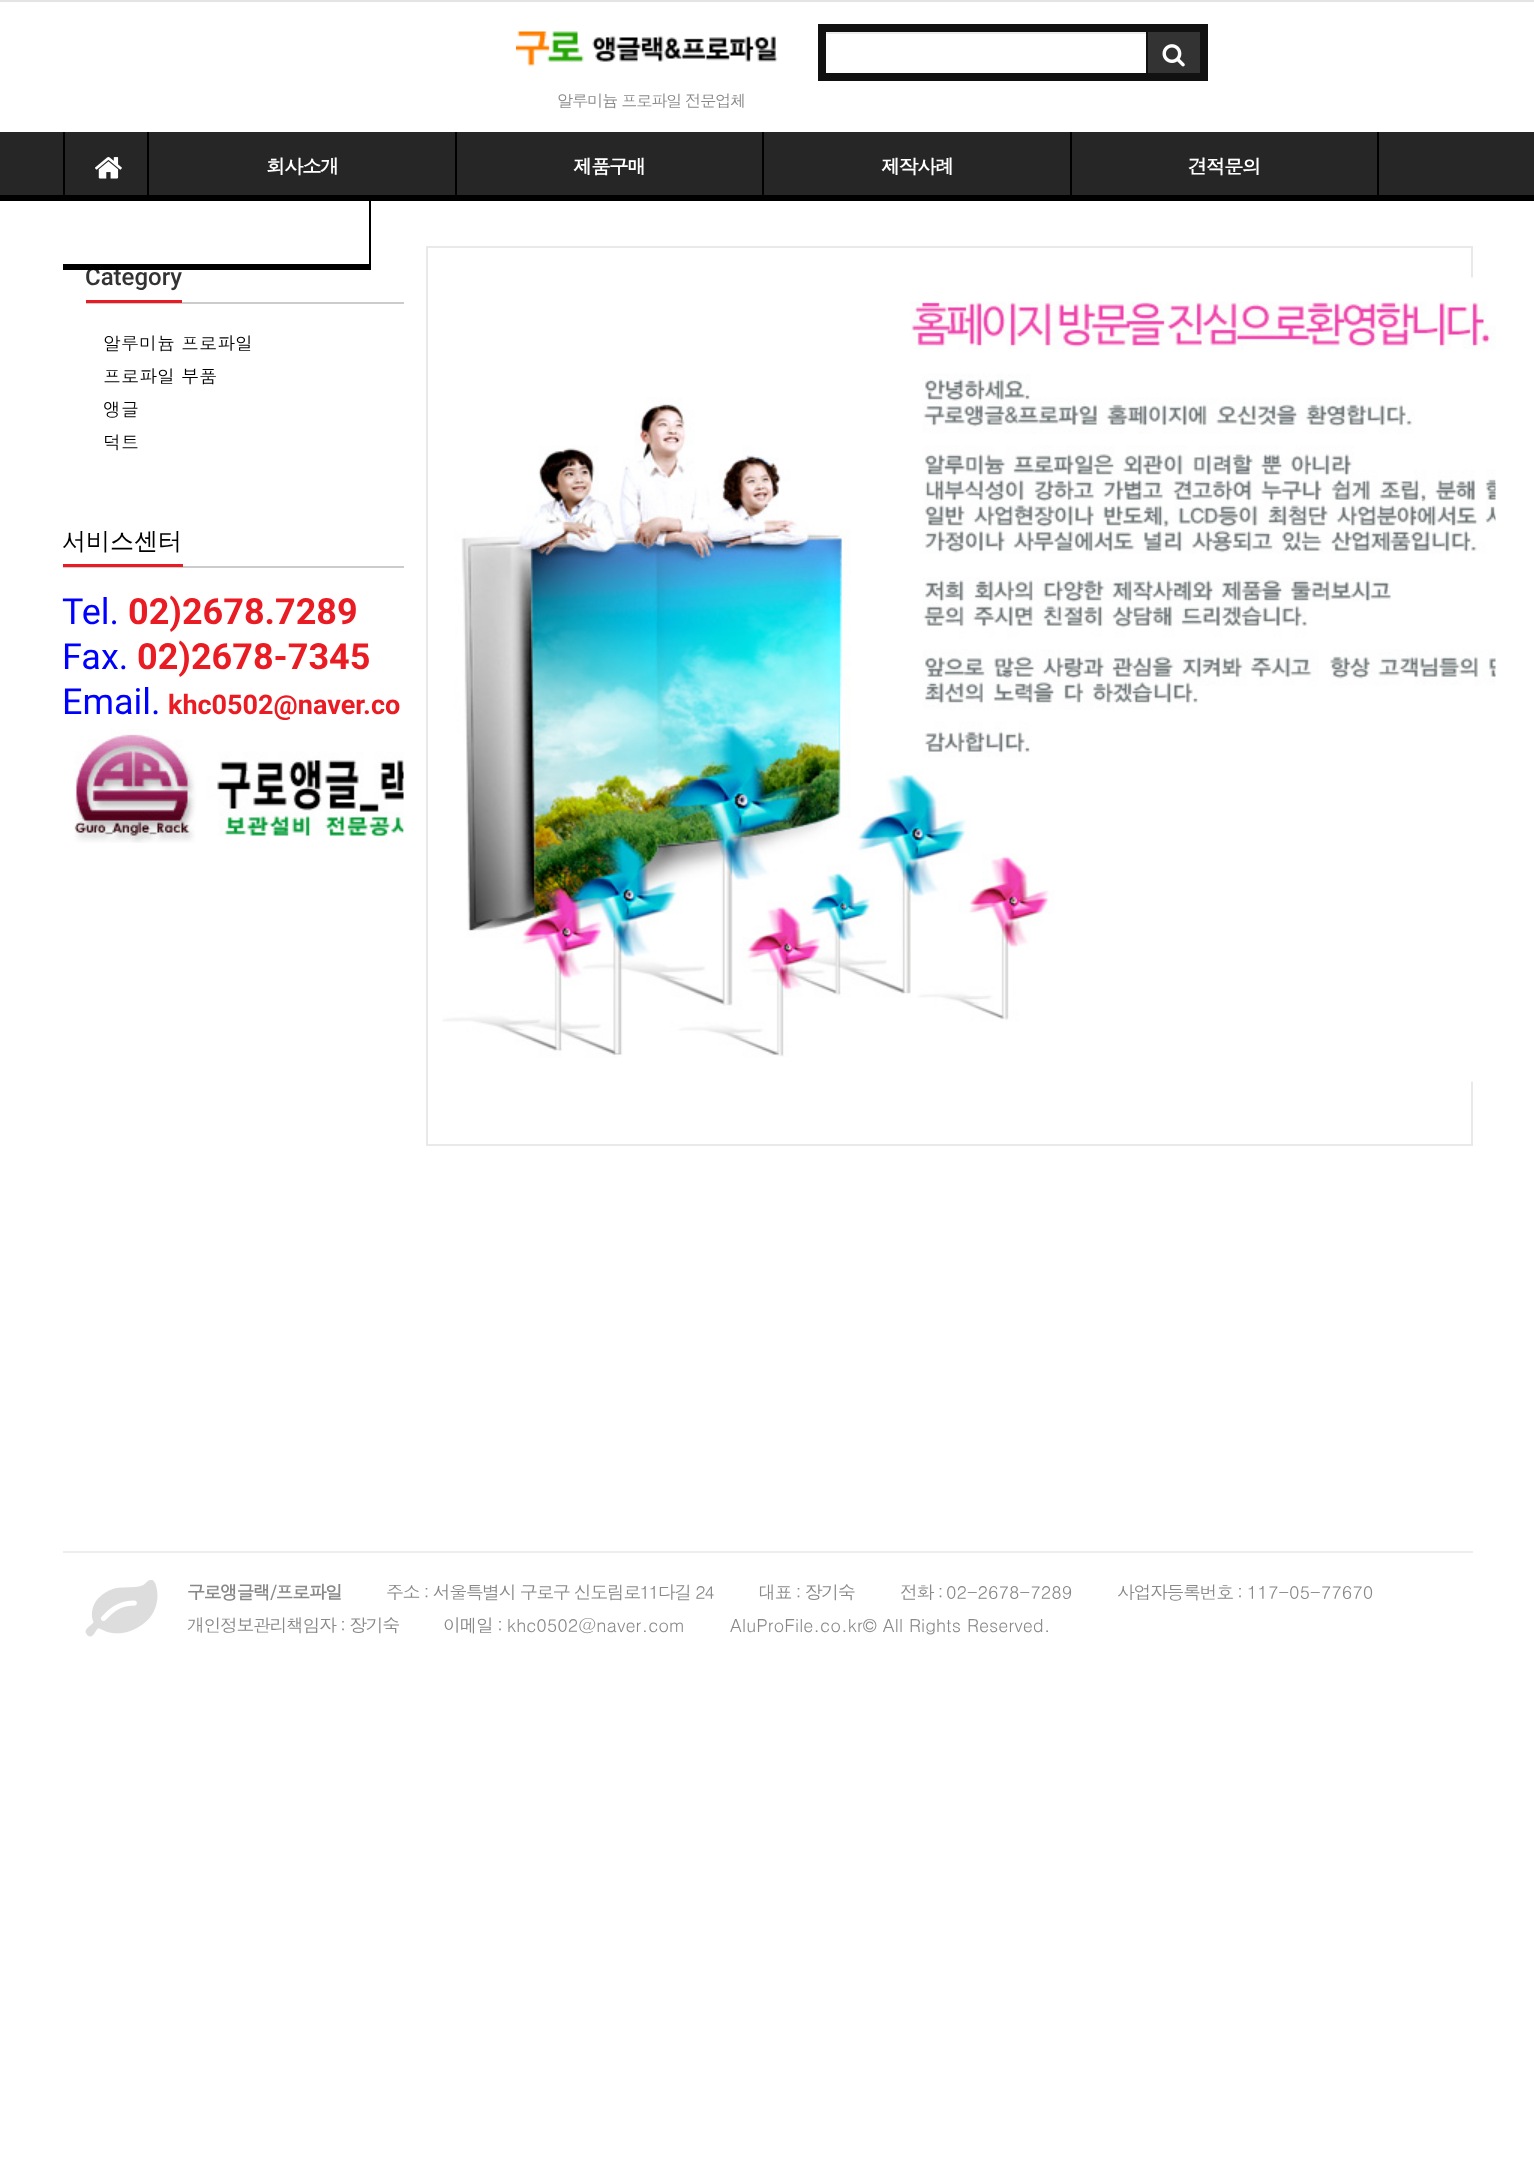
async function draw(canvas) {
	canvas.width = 1534;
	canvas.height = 2180;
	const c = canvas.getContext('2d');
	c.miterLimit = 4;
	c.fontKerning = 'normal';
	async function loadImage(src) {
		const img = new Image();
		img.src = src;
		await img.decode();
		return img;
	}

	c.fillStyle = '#fff';
	c.fillRect(0, 0, 1534, 2180);
	for (const [x, y, w, h, color] of [
		[0, 0, 1534, 2, '#e4e4e4'],
		[818, 24, 390, 57, '#111'],
		[826, 34, 320, 39, '#fff'],
		[825, 32, 321, 2, '#ececec'],
	]) {
		c.fillStyle = color;
		c.fillRect(x, y, w, h);
	}
	c.strokeStyle = '#111';
	c.lineWidth = 2;
	c.strokeRect(825, 31, 322, 43);
	c.fillStyle = '#333';
	c.fillRect(1148, 32, 52, 41);
	c.drawImage(await loadImage('img1.png'), 1162, 44, 23, 23);
	c.drawImage(await loadImage('img2.png'), 516, 31, 262, 36);
	c.letterSpacing = '-1.5px';
	c.font = '16.5px Dotum';
	c.fillStyle = '#888';
	c.fillText('알루미늄 프로파일 전문업체', 557, 107);
	for (const [x, y, w, h, color] of [
		[0, 132, 1534, 63, '#262626'],
		[0, 195, 1534, 6, '#000'],
		[147, 132, 2, 69, '#000'],
		[63, 132, 2, 69, '#000'],
	]) {
		c.fillStyle = color;
		c.fillRect(x, y, w, h);
	}
	c.drawImage(await loadImage('img3.png'), 95, 157, 27, 22);
	c.fillRect(455, 132, 2, 69);
	c.font = 'bold 19.5px Dotum';
	c.fillStyle = '#fff';
	c.fillText('회사소개', 266, 174);
	c.fillStyle = '#000';
	c.fillRect(762, 132, 2, 69);
	c.fillStyle = '#fff';
	c.fillText('제품구매', 573, 174);
	c.fillStyle = '#000';
	c.fillRect(1070, 132, 2, 69);
	c.fillStyle = '#fff';
	c.fillText('제작사례', 881, 174);
	c.fillStyle = '#000';
	c.fillRect(1377, 132, 2, 69);
	c.fillStyle = '#fff';
	c.fillText('견적문의', 1188, 174);
	c.fillStyle = '#000';
	c.fillRect(369, 201, 2, 69);
	c.letterSpacing = '0px';
	c.font = '500 24px Roboto';
	c.fillStyle = '#333';
	c.fillText('Category', 85, 285);
	for (const [x, y, w, h, color] of [
		[63, 264, 306, 6, '#000'],
		[86, 302, 318, 2, '#ccc'],
		[86, 300, 96, 3, '#e91b23'],
	]) {
		c.fillStyle = color;
		c.fillRect(x, y, w, h);
	}
	c.font = '18px Dotum';
	c.fillStyle = '#000';
	for (const [text, x, y] of [
		['알루미늄 프로파일', 103, 350],
		['프로파일 부품', 103, 383],
		['앵글', 103, 416],
		['덕트', 103, 449],
	]) {
		c.fillText(text, x, y);
	}
	c.fillStyle = '#ccc';
	c.fillRect(63, 566, 341, 2);
	c.fillStyle = '#e91b23';
	c.fillRect(63, 564, 120, 3);
	c.font = '500 24px WenQuanYi Zen Hei';
	c.fillStyle = '#000';
	c.fillText('서비스센터', 62, 549);
	c.font = '36px Roboto';
	c.fillStyle = '#00f';
	c.fillText('Tel.', 62, 624);
	c.font = 'bold 36px Roboto';
	c.fillStyle = '#e91b23';
	c.fillText('02)2678.7289', 128, 624);
	c.font = '36px Roboto';
	c.fillStyle = '#00f';
	c.fillText('Fax.', 62, 669);
	c.font = 'bold 36px Roboto';
	c.fillStyle = '#e91b23';
	c.fillText('02)2678-7345', 137, 669);
	c.font = '36px Roboto';
	c.fillStyle = '#00f';
	c.fillText('Email.', 62, 714);
	c.font = 'bold 27px Roboto';
	c.fillStyle = '#e91b23';
	c.fillText('khc0502@naver.co', 168, 714);
	c.drawImage(await loadImage('img4.png'), 74, 729, 330, 114);
	c.strokeStyle = '#e9e9e9';
	c.strokeRect(427, 247, 1045, 898);
	c.drawImage(await loadImage('img5.png'), 442, 277, 1054, 805);
	c.fillStyle = '#eee';
	c.fillRect(63, 1551, 1410, 2);
	c.drawImage(await loadImage('img6.png'), 85, 1580, 73, 57);
	c.letterSpacing = '-1.5px';
	c.font = 'bold 18px Dotum';
	c.fillStyle = '#888';
	c.fillText('구로앵글랙/프로파일', 187, 1599);
	c.font = '18px Dotum';
	for (const [text, x, y] of [
		['주소 : 서울특별시 구로구 신도림로11다길 24', 386, 1599],
		['대표 : 장기숙', 758, 1599],
		['전화 :', 900, 1599],
	]) {
		c.fillText(text, x, y);
	}
	c.letterSpacing = '0px';
	c.fillText('02-2678-7289', 946, 1599);
	c.letterSpacing = '-1.5px';
	c.fillText('사업자등록번호 :', 1117, 1599);
	c.letterSpacing = '0px';
	c.fillText('117-05-77670', 1247, 1599);
	c.letterSpacing = '-1.5px';
	c.fillText('개인정보관리책임자 : 장기숙', 187, 1632);
	c.fillText('이메일 :', 443, 1632);
	c.letterSpacing = '0px';
	c.fillText('khc0502@naver.com', 507, 1632);
	c.fillText('AluProFile.co.kr© All Rights Reserved.', 730, 1632);
}

draw(document.querySelector('canvas'));
